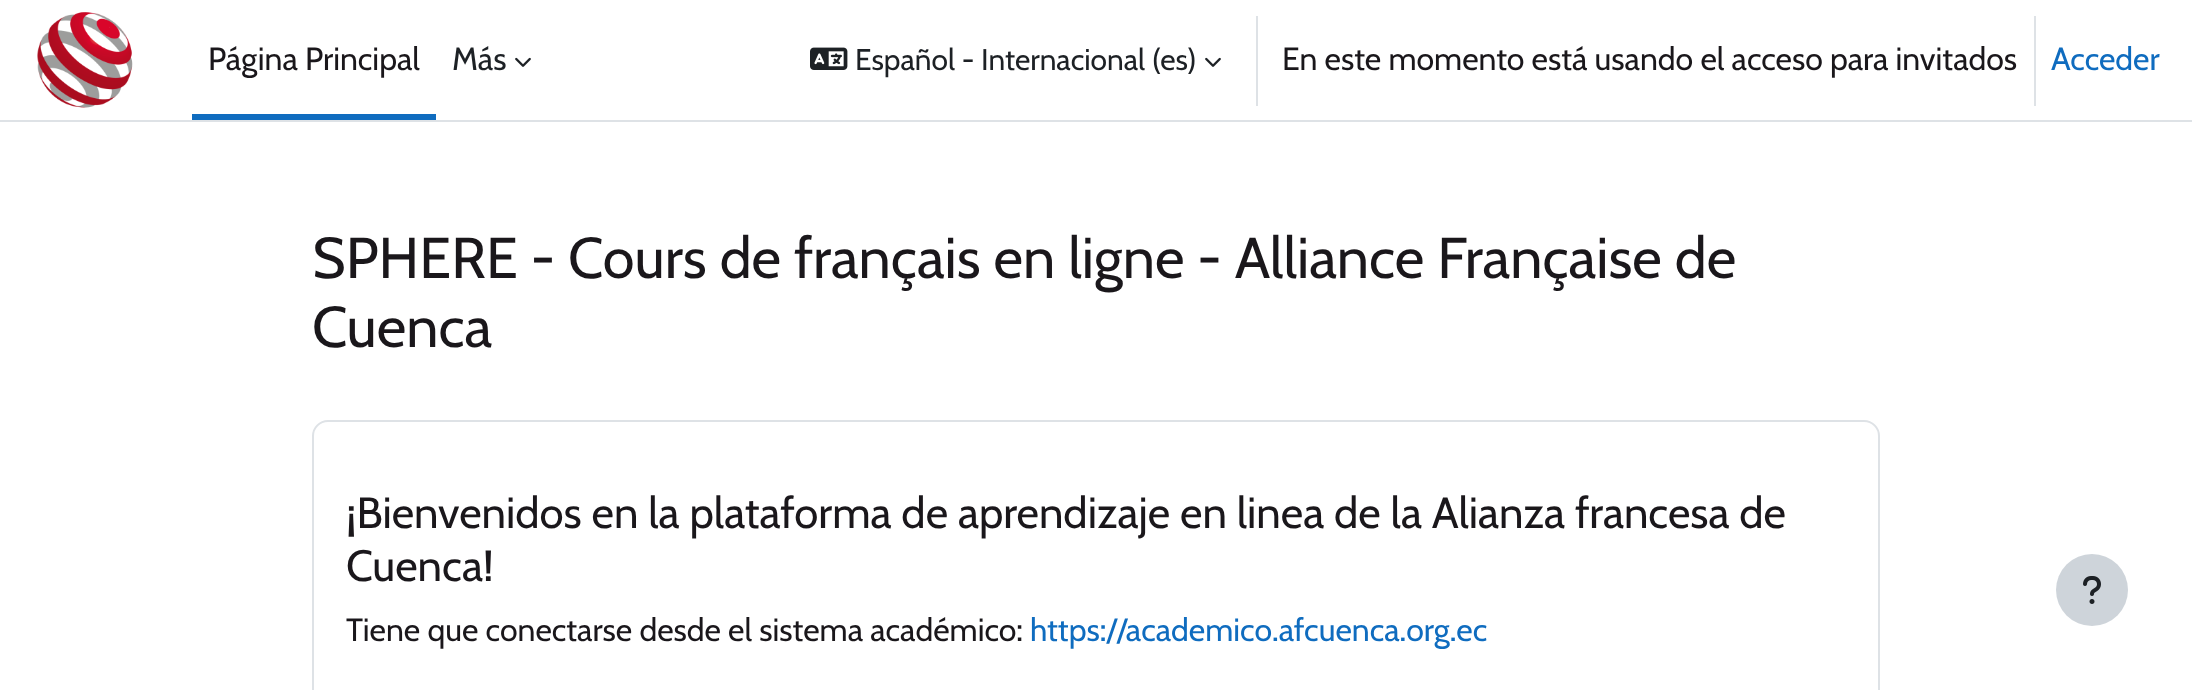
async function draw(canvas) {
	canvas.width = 2192;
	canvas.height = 690;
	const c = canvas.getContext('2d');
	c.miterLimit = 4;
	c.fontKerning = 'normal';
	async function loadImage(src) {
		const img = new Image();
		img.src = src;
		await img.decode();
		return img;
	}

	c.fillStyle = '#fff';
	c.fillRect(0, 0, 2192, 690);
	c.fillStyle = '#dee2e6';
	c.fillRect(0, 120, 2192, 2);
	c.drawImage(await loadImage('img1.png'), 37, 12, 96, 96);
	c.fillStyle = '#0f6cbf';
	c.fillRect(192, 114, 244, 6);
	c.font = '32px Cabin';
	c.fillStyle = '#1a171b';
	c.fillText('Página Principal', 208, 70);
	c.fillStyle = '#1d2125';
	c.fillText('Más', 452, 70);
	c.drawImage(await loadImage('img2.png'), 515, 57, 16, 10);
	c.drawImage(await loadImage('img3.png'), 810, 47, 38, 23);
	c.font = '29.9px Cabin';
	c.fillText('Español - Internacional (es)', 855, 70);
	c.drawImage(await loadImage('img2.png'), 1205, 57, 16, 10);
	c.fillStyle = '#dee2e6';
	c.fillRect(1256, 16, 2, 90);
	c.font = '32px Cabin';
	c.fillStyle = '#1a171b';
	c.fillText('En este momento está usando el acceso para invitados', 1282, 70);
	c.fillStyle = '#dee2e6';
	c.fillRect(2034, 16, 2, 90);
	c.fillStyle = '#0f6cbf';
	c.fillText('Acceder', 2051, 70);
	c.font = '57.6px Cabin';
	c.fillStyle = '#1a171b';
	c.fillText('SPHERE - Cours de français en ligne - Alliance Française de', 312, 278);
	c.fillText('Cuenca', 312, 347);
	c.beginPath();
	c.roundRect(313, 421, 1566, 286, 15);
	c.strokeStyle = '#dee2e6';
	c.lineWidth = 2;
	c.stroke();
	c.font = '43.75px Cabin';
	c.fillText('¡Bienvenidos en la plataforma de aprendizaje en linea de la Alianza francesa de', 346, 528);
	c.fillText('Cuenca!', 346, 581);
	c.font = '32px Cabin';
	c.fillText('Tiene que conectarse desde el sistema académico:', 346, 641);
	c.fillStyle = '#0f6cbf';
	c.fillText('https://academico.afcuenca.org.ec', 1030, 641);
	c.fillStyle = '#ced4da';
	c.beginPath();
	c.arc(2092, 590, 36, 0, 2 * Math.PI);
	c.fill();
	c.drawImage(await loadImage('img4.png'), 2083, 576, 18, 28);
}

draw(document.querySelector('canvas'));
